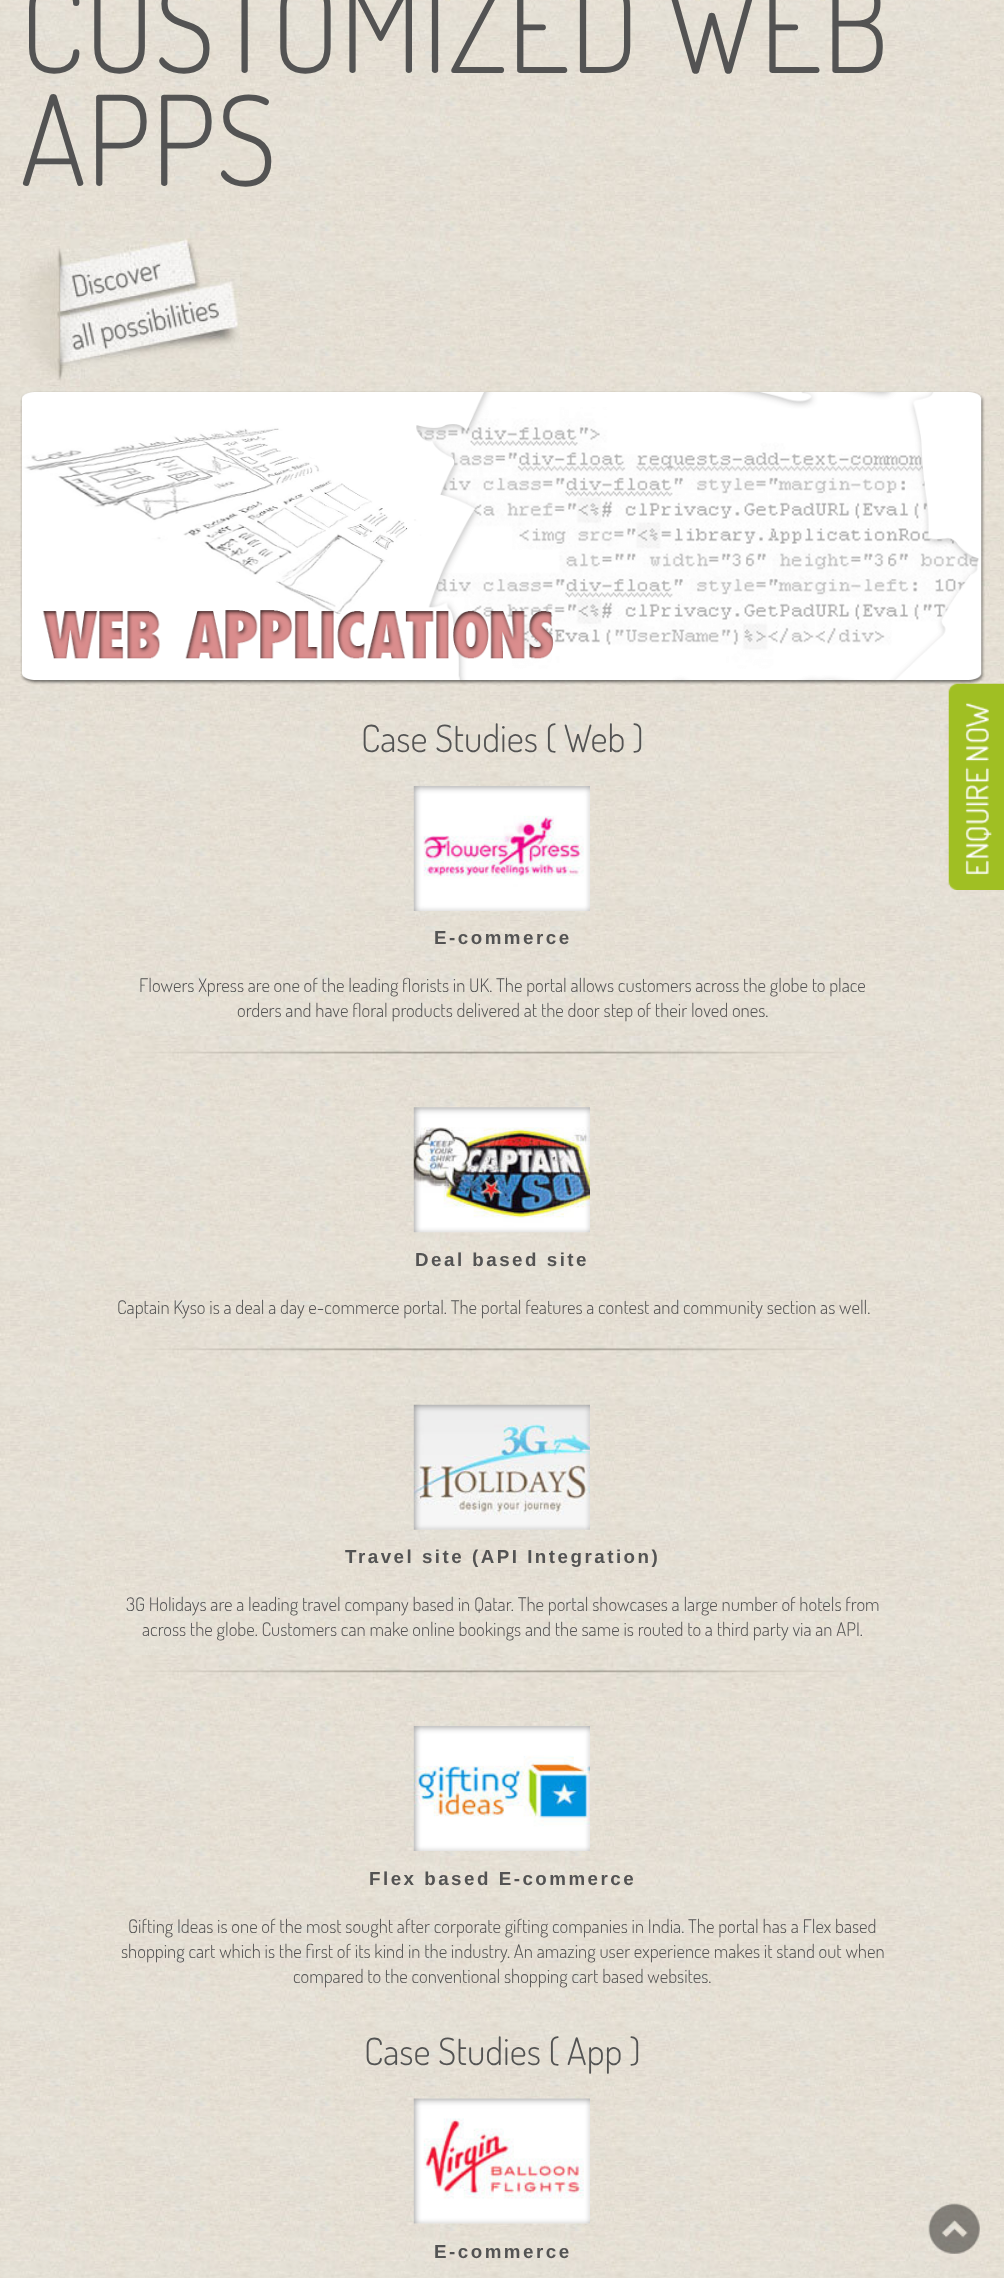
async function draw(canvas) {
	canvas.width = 1004;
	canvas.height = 2278;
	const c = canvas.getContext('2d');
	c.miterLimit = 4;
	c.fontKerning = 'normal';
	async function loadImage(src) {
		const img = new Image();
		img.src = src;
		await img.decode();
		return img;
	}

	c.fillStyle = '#fff';
	c.fillRect(0, 0, 1004, 2278);
	c.drawImage(await loadImage('img1.png'), 0, 0, 1004, 2278);
	c.font = '300 125px Dosis';
	c.fillStyle = '#535353';
	c.fillText('CUSTOMIZED WEB', 20, 73);
	c.fillText('APPS', 20, 186);
	c.drawImage(await loadImage('img2.png'), 20, 238, 223, 149);
	c.drawImage(await loadImage('img3.png'), 20, 391, 965, 294);
	c.font = '300 37.5px Dosis';
	c.fillText('Case Studies ( Web )', 361, 752);
	c.drawImage(await loadImage('img4.png'), 413, 786, 177, 125);
	c.letterSpacing = '2.5px';
	c.font = 'bold 18.75px Liberation Sans';
	c.fillText('E-commerce', 434, 944);
	c.letterSpacing = '0px';
	c.font = '300 18.75px Dosis';
	c.fillText('Flowers Xpress are one of the leading florists in UK. The portal allows customers across the globe to place', 139, 992);
	c.fillText('orders and have floral products delivered at the door step of their loved ones.', 237, 1017);
	c.drawImage(await loadImage('img5.png'), 116, 1036, 773, 43);
	c.drawImage(await loadImage('img6.png'), 413, 1107, 177, 126);
	c.letterSpacing = '2.5px';
	c.font = 'bold 18.75px Liberation Sans';
	c.fillText('Deal based site', 415, 1266);
	c.letterSpacing = '0px';
	c.font = '300 18.75px Dosis';
	c.fillText('Captain Kyso is a deal a day e-commerce portal. The portal features a contest and community section as well.', 117, 1314);
	c.drawImage(await loadImage('img7.png'), 116, 1332, 773, 44);
	c.drawImage(await loadImage('img8.png'), 413, 1404, 177, 126);
	c.letterSpacing = '2.5px';
	c.font = 'bold 18.75px Liberation Sans';
	c.fillText('Travel site (API Integration)', 345, 1563);
	c.letterSpacing = '0px';
	c.font = '300 18.75px Dosis';
	c.fillText('3G Holidays are a leading travel company based in Qatar. The portal showcases a large number of hotels from', 126, 1611);
	c.fillText('across the globe. Customers can make online bookings and the same is routed to a third party via an API.', 142, 1636);
	c.drawImage(await loadImage('img9.png'), 116, 1655, 773, 42);
	c.drawImage(await loadImage('img10.png'), 413, 1726, 177, 125);
	c.letterSpacing = '2.5px';
	c.font = 'bold 18.75px Liberation Sans';
	c.fillText('Flex based E-commerce', 369, 1885);
	c.letterSpacing = '0px';
	c.font = '300 18.75px Dosis';
	for (const [text, x, y] of [
		['Gifting Ideas is one of the most sought after corporate gifting companies in India. The portal has a Flex based', 128, 1933],
		['shopping cart which is the first of its kind in the industry. An amazing user experience makes it stand out when', 121, 1958],
		['compared to the conventional shopping cart based websites.', 293, 1983],
	]) {
		c.fillText(text, x, y);
	}
	c.font = '300 37.5px Dosis';
	c.fillText('Case Studies ( App )', 364, 2065);
	c.drawImage(await loadImage('img11.png'), 413, 2098, 177, 126);
	c.letterSpacing = '2.5px';
	c.font = 'bold 18.75px Liberation Sans';
	c.fillText('E-commerce', 434, 2258);
	c.drawImage(await loadImage('img12.png'), 948, 683, 56, 207);
	c.drawImage(await loadImage('img13.png'), 928, 2203, 52, 51);
}

draw(document.querySelector('canvas'));
